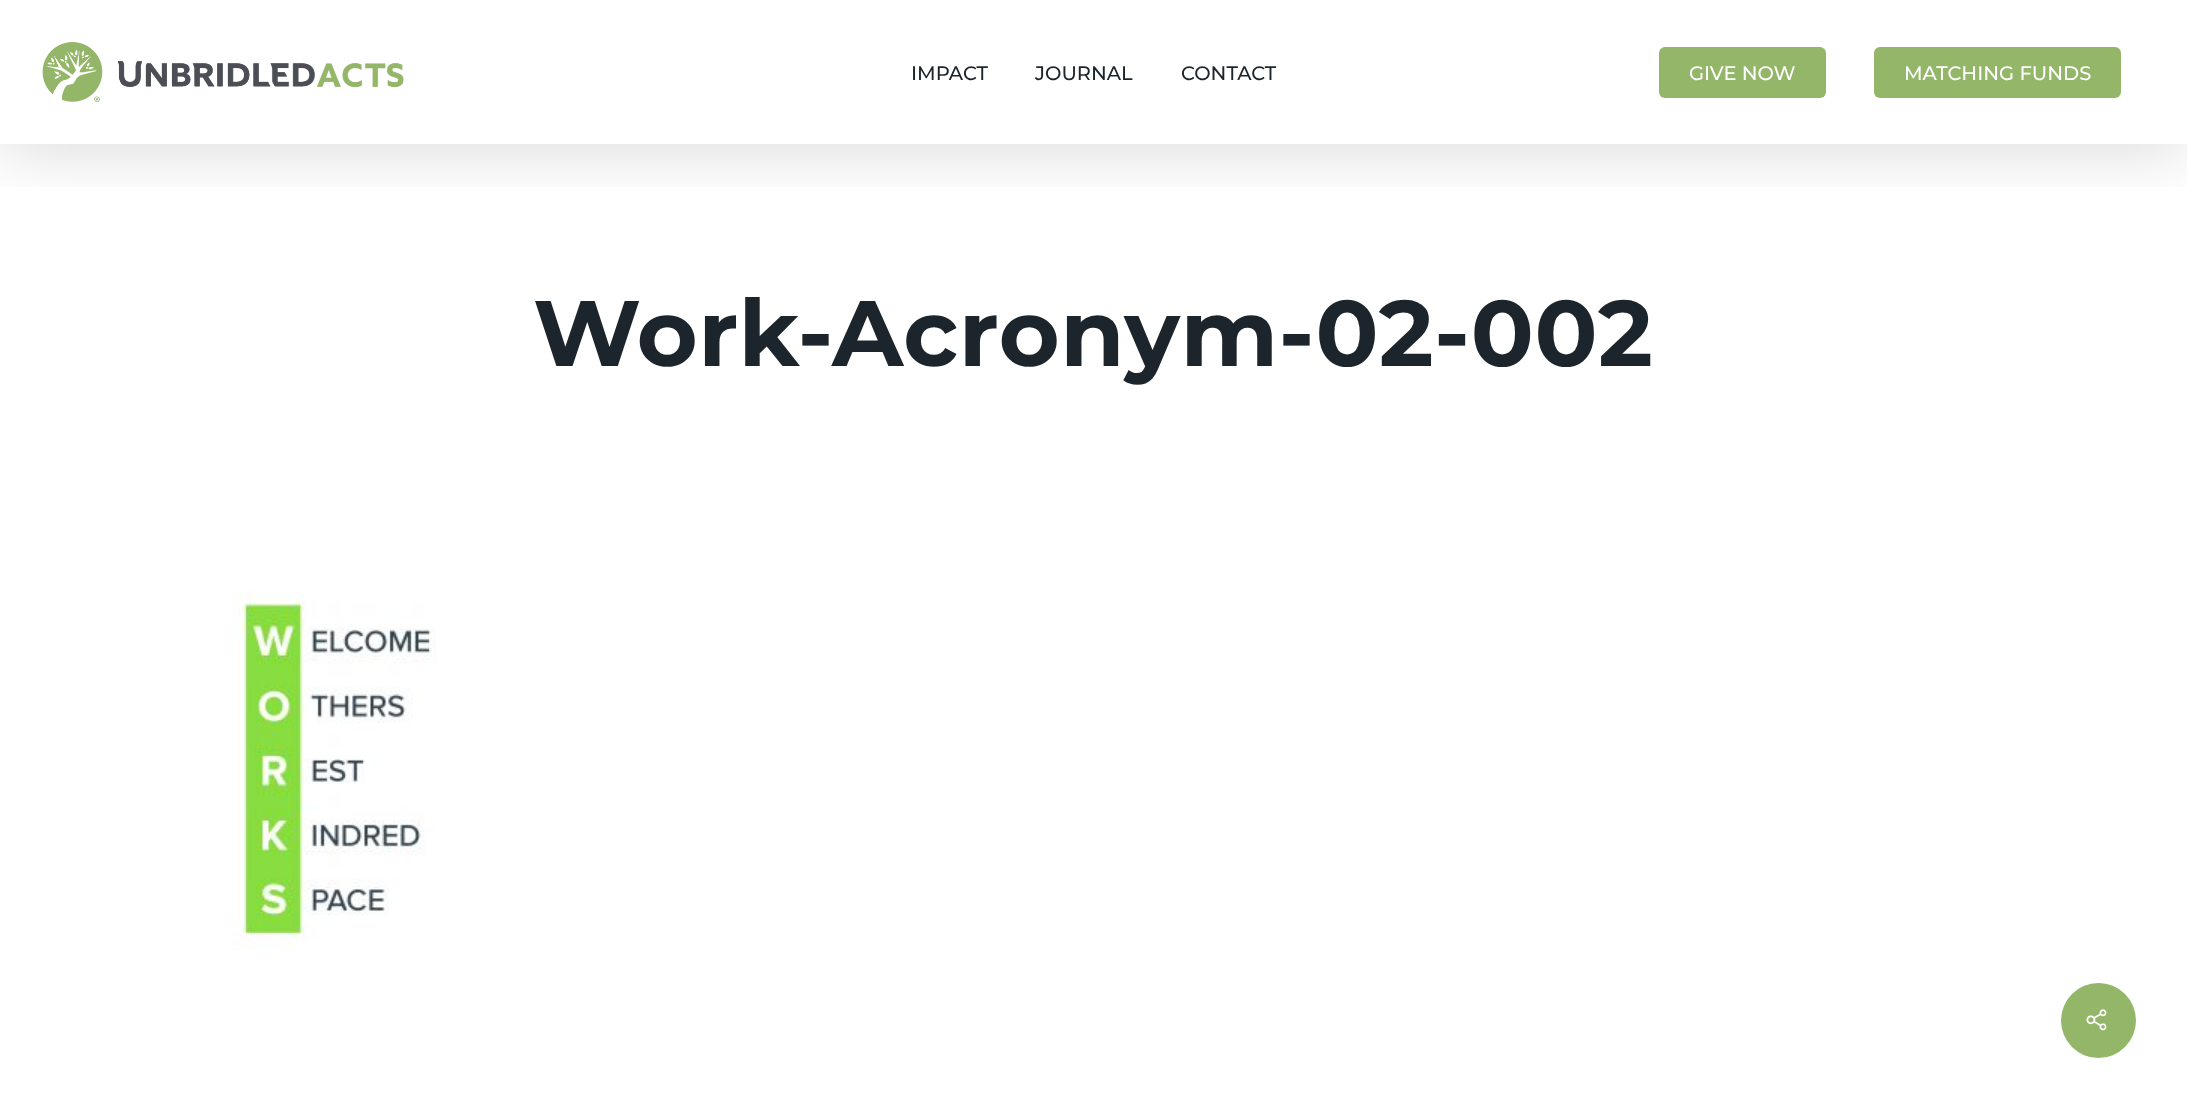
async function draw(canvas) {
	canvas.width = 2187;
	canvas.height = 1108;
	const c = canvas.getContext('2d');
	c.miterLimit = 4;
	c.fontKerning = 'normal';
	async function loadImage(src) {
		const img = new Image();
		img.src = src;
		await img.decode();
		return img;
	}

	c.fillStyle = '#fff';
	c.fillRect(0, 0, 2187, 1108);
	c.save();
	c.beginPath();
	c.rect(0, 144, 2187, 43);
	c.clip();
	c.fillStyle = '#00000026';
	c.filter = 'blur(34px)';
	c.beginPath();
	c.rect(0, 5, 2187, 144);
	c.fill();
	c.filter = 'none';
	c.restore();
	c.drawImage(await loadImage('img1.png'), 42, 42, 362, 60);
	c.font = '500 19.5px Montserrat';
	c.fillStyle = '#1d252c';
	for (const [text, x, y] of [
		['IMPACT', 911, 80],
		['JOURNAL', 1035, 80],
		['CONTACT', 1181, 80],
	]) {
		c.fillText(text, x, y);
	}
	c.fillStyle = '#94b669';
	c.beginPath();
	c.roundRect(1659, 47, 167, 51, 6);
	c.fill();
	c.fillStyle = '#fff';
	c.fillText('GIVE NOW', 1689, 80);
	c.fillStyle = '#94b669';
	c.beginPath();
	c.roundRect(1874, 47, 247, 51, 6);
	c.fill();
	c.fillStyle = '#fff';
	c.fillText('MATCHING FUNDS', 1904, 80);
	c.letterSpacing = '0.6px';
	c.font = 'bold 93px Montserrat';
	c.fillStyle = '#1d252c';
	c.fillText('Work-Acronym-02-002', 533, 366);
	c.drawImage(await loadImage('img2.png'), 232, 591, 204, 360);
	c.fillStyle = '#94b669';
	c.beginPath();
	c.arc(2098.5, 1020.5, 37.5, 0, 2 * Math.PI);
	c.fill();
	c.drawImage(await loadImage('img3.png'), 2086, 1009, 21, 22);
}

draw(document.querySelector('canvas'));
